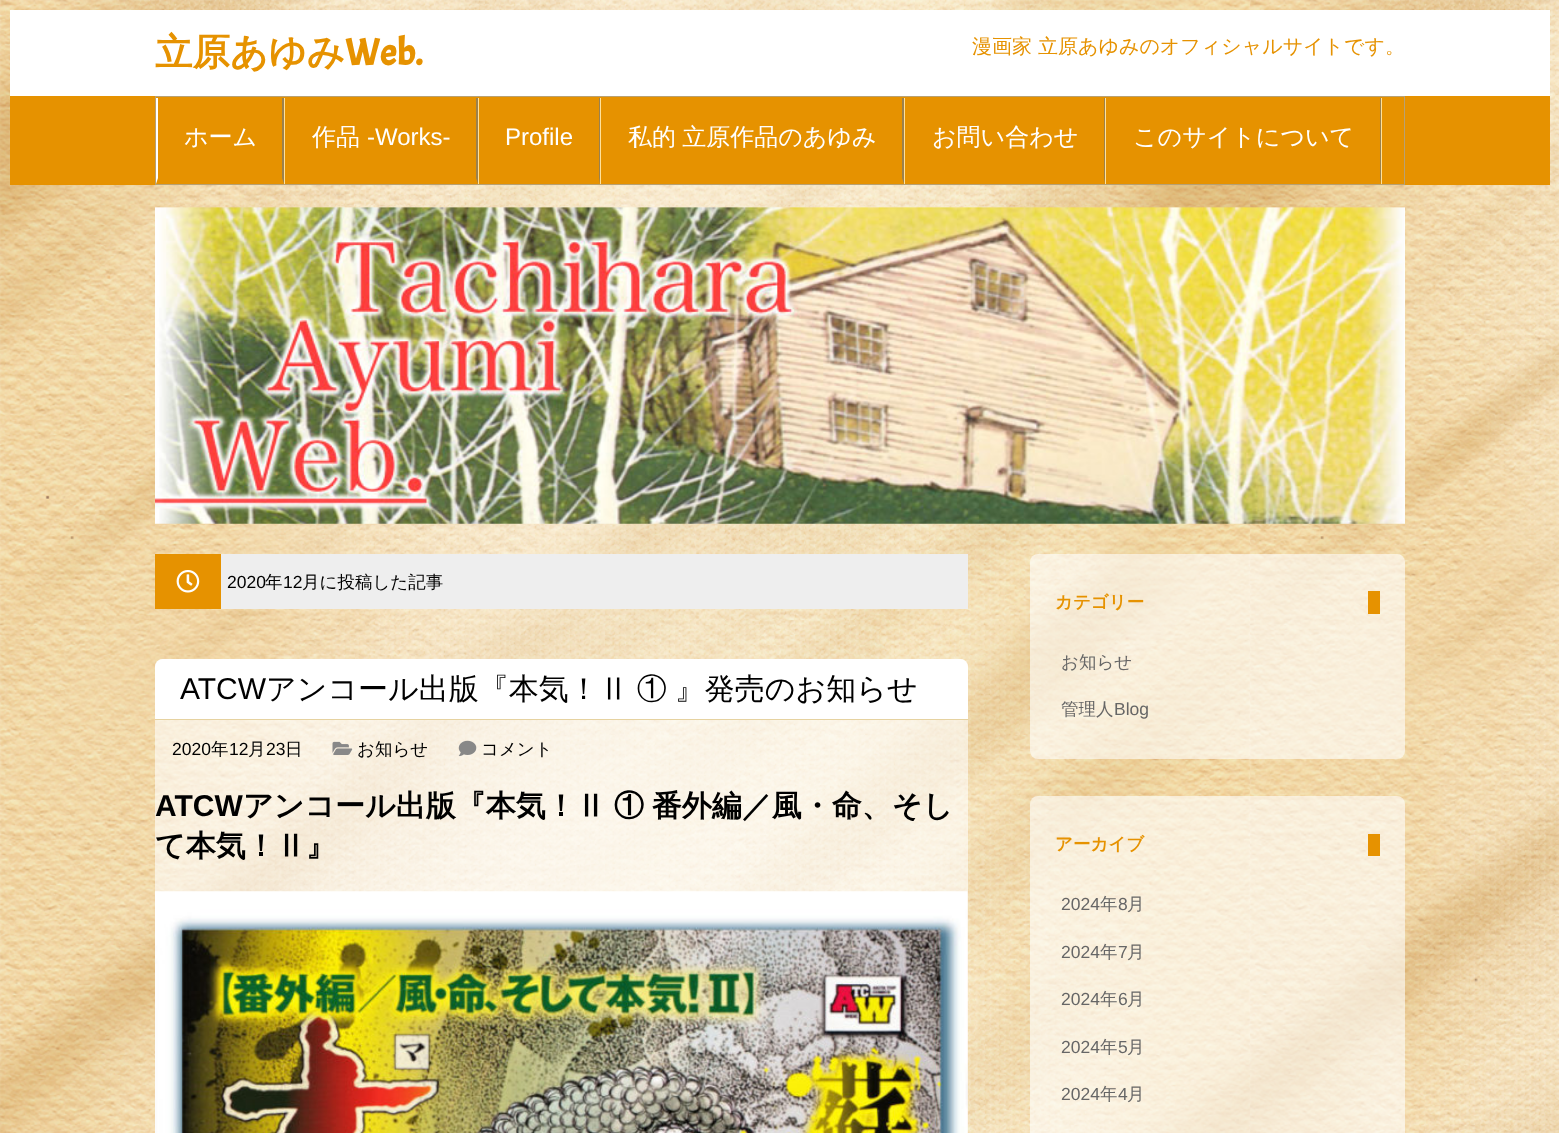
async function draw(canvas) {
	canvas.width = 1559;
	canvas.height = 1133;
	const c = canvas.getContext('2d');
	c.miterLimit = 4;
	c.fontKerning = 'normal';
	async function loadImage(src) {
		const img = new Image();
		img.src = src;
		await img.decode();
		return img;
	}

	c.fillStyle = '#fff';
	c.fillRect(0, 0, 1559, 1133);
	c.drawImage(await loadImage('img1.png'), 0, 0, 1559, 1133);
	c.fillStyle = '#e69200';
	c.fillRect(10, 96, 1540, 89);
	c.fillStyle = '#fff';
	c.fillRect(10, 10, 1540, 86);
	c.font = 'bold 37.5px WenQuanYi Zen Hei';
	c.fillStyle = '#e69200';
	c.fillText('立原あゆみ', 155, 65);
	c.font = 'bold 37.5px Acme';
	c.fillText('Web.', 345, 65);
	c.font = '500 20px WenQuanYi Zen Hei';
	c.fillText('漫画家 立原あゆみのオフィシャルサイトです。', 972, 53);
	c.strokeStyle = '#b8a173';
	c.strokeRect(155.5, 96.5, 1249, 88);
	c.fillStyle = '#ffe19b';
	c.fillRect(284, 98, 1, 86);
	c.fillStyle = '#9b814e';
	c.beginPath();
	c.moveTo(284, 98);
	c.lineTo(284, 184);
	c.lineTo(282, 178);
	c.lineTo(282, 98);
	c.closePath();
	c.fill();
	c.fillStyle = '#fff';
	c.beginPath();
	c.moveTo(156, 184);
	c.lineTo(156, 98);
	c.lineTo(158, 98);
	c.lineTo(158, 178);
	c.closePath();
	c.fill();
	c.font = '500 24px WenQuanYi Zen Hei';
	c.fillText('ホーム', 184, 145);
	c.fillStyle = '#ffe19b';
	c.fillRect(478, 98, 1, 86);
	c.fillStyle = '#9b814e';
	c.beginPath();
	c.moveTo(478, 98);
	c.lineTo(478, 184);
	c.lineTo(476, 178);
	c.lineTo(476, 98);
	c.closePath();
	c.fill();
	c.fillStyle = '#fff';
	c.fillText('作品', 312, 145);
	c.font = '24px Liberation Sans';
	c.fillText('-Works-', 367, 145);
	c.fillStyle = '#ffe19b';
	c.fillRect(600, 98, 1, 86);
	c.fillStyle = '#9b814e';
	c.beginPath();
	c.moveTo(600, 98);
	c.lineTo(600, 184);
	c.lineTo(599, 178);
	c.lineTo(599, 98);
	c.closePath();
	c.fill();
	c.fillStyle = '#fff';
	c.fillText('Profile', 505, 145);
	c.fillStyle = '#ffe19b';
	c.fillRect(904, 98, 1, 86);
	c.fillStyle = '#9b814e';
	c.beginPath();
	c.moveTo(904, 98);
	c.lineTo(904, 184);
	c.lineTo(902, 178);
	c.lineTo(902, 98);
	c.closePath();
	c.fill();
	c.wordSpacing = '-1px';
	c.font = '500 24px WenQuanYi Zen Hei';
	c.fillStyle = '#fff';
	c.fillText('私的 立原作品のあゆみ', 628, 145);
	c.fillStyle = '#ffe19b';
	c.fillRect(1105, 98, 1, 86);
	c.fillStyle = '#9b814e';
	c.beginPath();
	c.moveTo(1105, 98);
	c.lineTo(1105, 184);
	c.lineTo(1104, 178);
	c.lineTo(1104, 98);
	c.closePath();
	c.fill();
	c.wordSpacing = '0px';
	c.fillStyle = '#fff';
	c.fillText('お問い合わせ', 932, 145);
	c.fillStyle = '#ffe19b';
	c.fillRect(1381, 98, 1, 86);
	c.fillStyle = '#9b814e';
	c.beginPath();
	c.moveTo(1381, 98);
	c.lineTo(1381, 184);
	c.lineTo(1380, 178);
	c.lineTo(1380, 98);
	c.closePath();
	c.fill();
	c.fillStyle = '#fff';
	c.fillText('このサイトについて', 1133, 145);
	c.drawImage(await loadImage('img2.png'), 155, 207, 1250, 317);
	c.fillStyle = '#eee';
	c.fillRect(221, 554, 747, 55);
	c.fillStyle = '#e69200';
	c.fillRect(155, 554, 66, 55);
	c.drawImage(await loadImage('img3.png'), 176, 570, 24, 23);
	c.font = '17.5px Liberation Sans';
	c.fillStyle = '#000';
	c.fillText('2020', 227, 588);
	c.font = '500 17.5px WenQuanYi Zen Hei';
	c.fillText('年', 265, 588);
	c.font = '17.5px Liberation Sans';
	c.fillText('12', 283, 588);
	c.font = '500 17.5px WenQuanYi Zen Hei';
	c.fillText('月に投稿した記事', 302, 588);
	c.fillStyle = '#ffffff99';
	c.beginPath();
	c.roundRect(155, 659, 813, 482, 8);
	c.fill();
	c.fillStyle = '#fff';
	c.beginPath();
	c.roundRect(155, 659, 813, 61, [8, 8, 0, 0]);
	c.fill();
	c.fillStyle = '#e6d2a0';
	c.fillRect(155, 719, 813, 1);
	c.font = '30px Liberation Sans';
	c.fillStyle = '#000';
	c.fillText('ATCW', 180, 699);
	c.wordSpacing = '-1px';
	c.font = '500 30px WenQuanYi Zen Hei';
	c.fillText('アンコール出版『本気！Ⅱ ① 』発売のお知らせ', 266, 699);
	c.wordSpacing = '0px';
	c.font = '17.5px Liberation Sans';
	c.fillText('2020', 172, 755);
	c.font = '500 17.5px WenQuanYi Zen Hei';
	c.fillText('年', 211, 755);
	c.font = '17.5px Liberation Sans';
	c.fillText('12', 229, 755);
	c.font = '500 17.5px WenQuanYi Zen Hei';
	c.fillText('月', 248, 755);
	c.font = '17.5px Liberation Sans';
	c.fillText('23', 266, 755);
	c.font = '500 17.5px WenQuanYi Zen Hei';
	c.fillText('日', 285, 755);
	c.drawImage(await loadImage('img4.png'), 332, 741, 21, 14);
	c.fillText('お知らせ', 357, 755);
	c.drawImage(await loadImage('img5.png'), 458, 740, 19, 17);
	c.fillText('コメント', 481, 755);
	c.font = 'bold 30px Liberation Sans';
	c.fillText('ATCW', 155, 816);
	c.wordSpacing = '-1px';
	c.font = 'bold 30px WenQuanYi Zen Hei';
	c.fillText('アンコール出版『本気！Ⅱ ① 番外編／風・命、そし', 243, 816);
	c.wordSpacing = '0px';
	c.fillText('て本気！Ⅱ』', 155, 856);
	c.drawImage(await loadImage('img6.png'), 155, 891, 813, 242);
	c.fillStyle = '#ffffff99';
	c.beginPath();
	c.roundRect(1030, 554, 375, 205, 8);
	c.fill();
	c.fillStyle = '#e69200';
	c.fillRect(1368, 591, 12, 23);
	c.font = 'bold 17.5px WenQuanYi Zen Hei';
	c.fillText('カテゴリー', 1055, 608);
	c.font = '500 17.5px WenQuanYi Zen Hei';
	c.fillStyle = '#666';
	c.fillText('お知らせ', 1061, 668);
	c.fillText('管理人', 1061, 715);
	c.font = '17.5px Liberation Sans';
	c.fillText('Blog', 1114, 715);
	c.fillStyle = '#ffffff99';
	c.beginPath();
	c.roundRect(1030, 796, 375, 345, 8);
	c.fill();
	c.fillStyle = '#e69200';
	c.fillRect(1368, 834, 12, 22);
	c.font = 'bold 17.5px WenQuanYi Zen Hei';
	c.fillText('アーカイブ', 1055, 850);
	c.font = '17.5px Liberation Sans';
	c.fillStyle = '#666';
	c.fillText('2024', 1061, 910);
	c.font = '500 17.5px WenQuanYi Zen Hei';
	c.fillText('年', 1100, 910);
	c.font = '17.5px Liberation Sans';
	c.fillText('8', 1118, 910);
	c.font = '500 17.5px WenQuanYi Zen Hei';
	c.fillText('月', 1127, 910);
	c.font = '17.5px Liberation Sans';
	c.fillText('2024', 1061, 958);
	c.font = '500 17.5px WenQuanYi Zen Hei';
	c.fillText('年', 1100, 958);
	c.font = '17.5px Liberation Sans';
	c.fillText('7', 1118, 958);
	c.font = '500 17.5px WenQuanYi Zen Hei';
	c.fillText('月', 1127, 958);
	c.font = '17.5px Liberation Sans';
	c.fillText('2024', 1061, 1005);
	c.font = '500 17.5px WenQuanYi Zen Hei';
	c.fillText('年', 1100, 1005);
	c.font = '17.5px Liberation Sans';
	c.fillText('6', 1118, 1005);
	c.font = '500 17.5px WenQuanYi Zen Hei';
	c.fillText('月', 1127, 1005);
	c.font = '17.5px Liberation Sans';
	c.fillText('2024', 1061, 1053);
	c.font = '500 17.5px WenQuanYi Zen Hei';
	c.fillText('年', 1100, 1053);
	c.font = '17.5px Liberation Sans';
	c.fillText('5', 1118, 1053);
	c.font = '500 17.5px WenQuanYi Zen Hei';
	c.fillText('月', 1127, 1053);
	c.font = '17.5px Liberation Sans';
	c.fillText('2024', 1061, 1100);
	c.font = '500 17.5px WenQuanYi Zen Hei';
	c.fillText('年', 1100, 1100);
	c.font = '17.5px Liberation Sans';
	c.fillText('4', 1118, 1100);
	c.font = '500 17.5px WenQuanYi Zen Hei';
	c.fillText('月', 1127, 1100);
}

draw(document.querySelector('canvas'));
